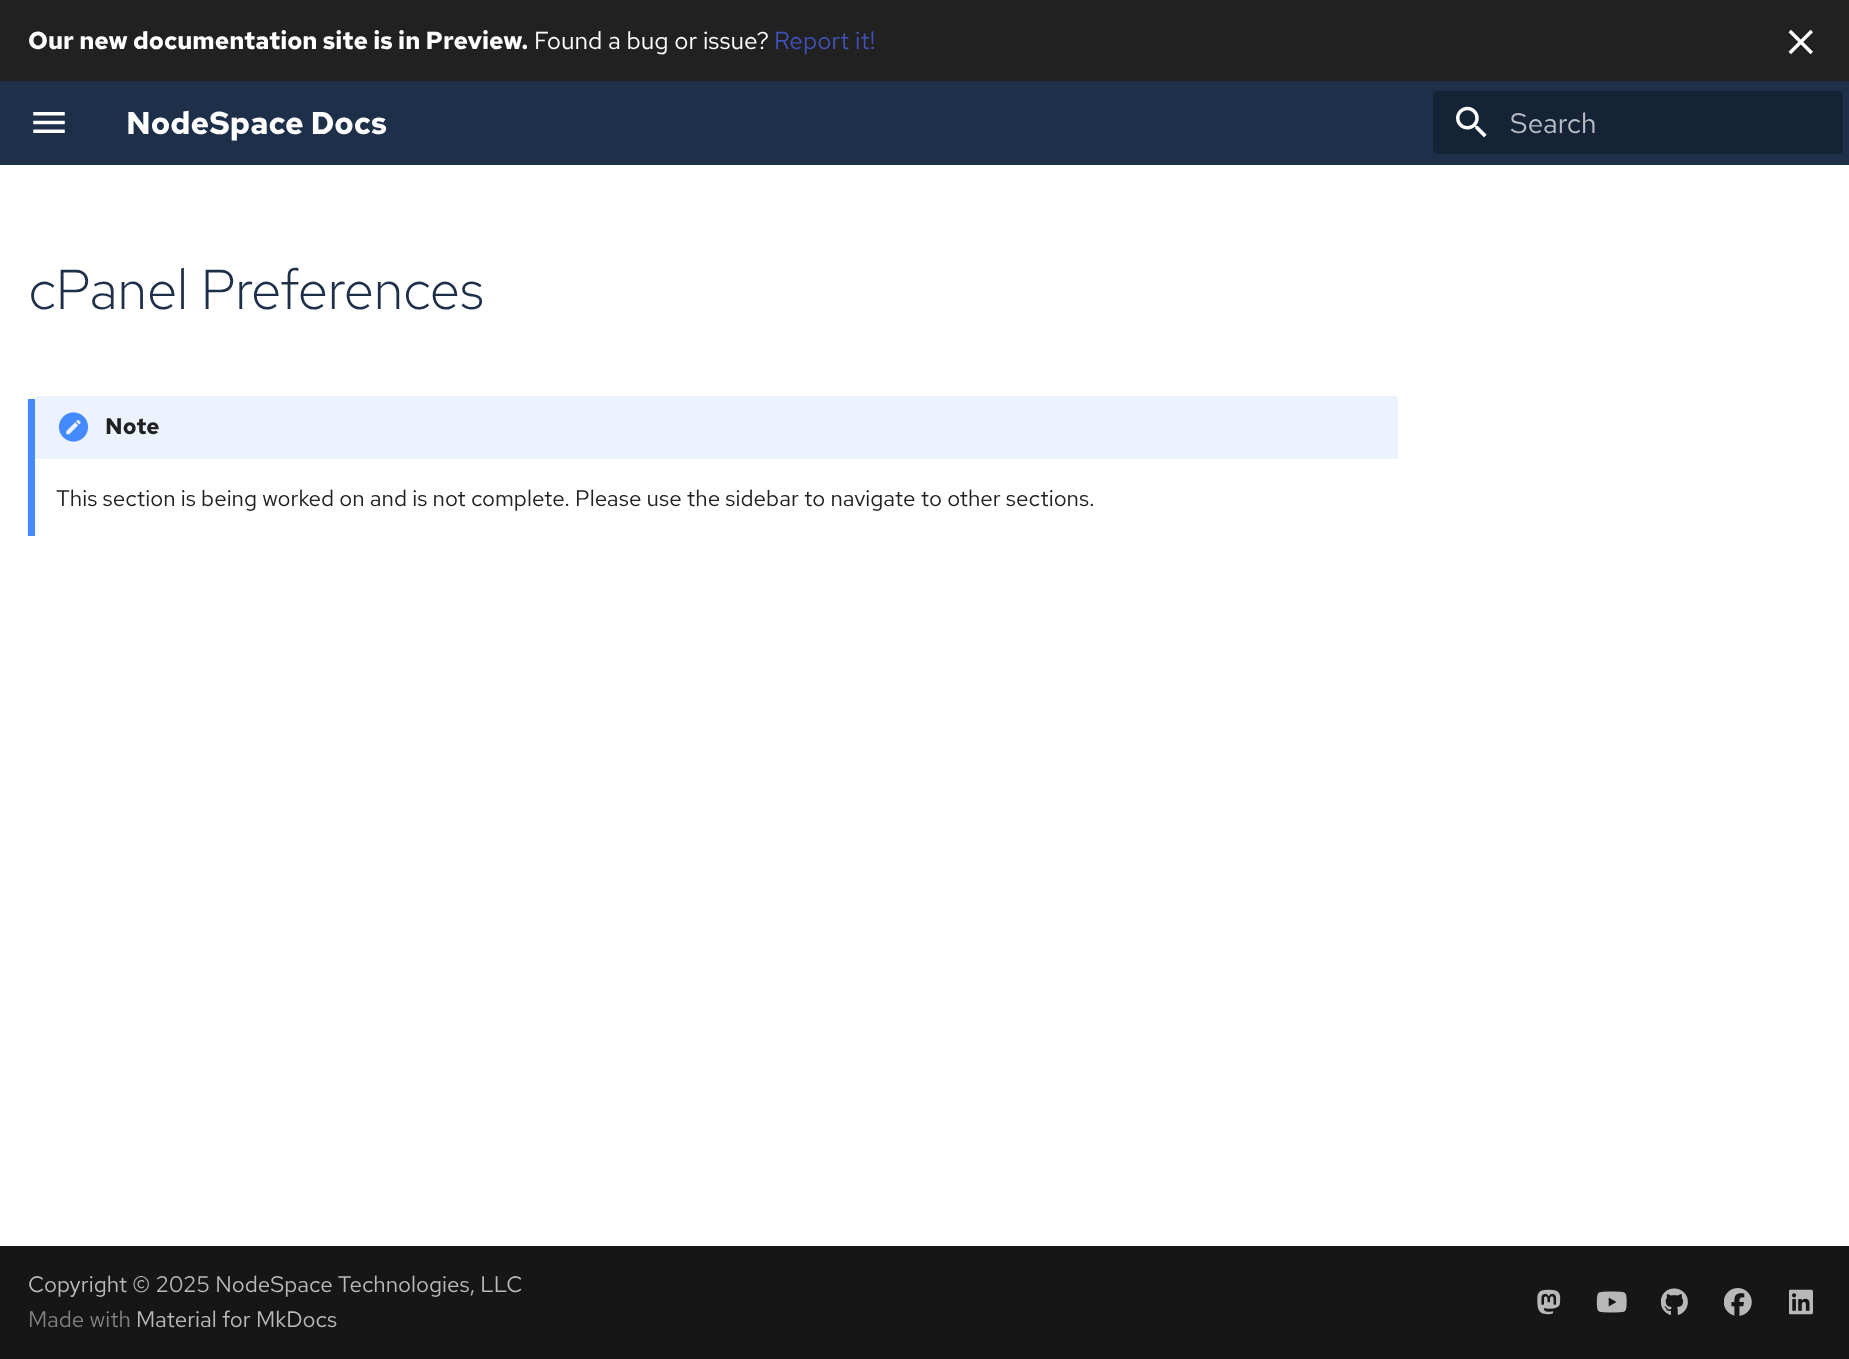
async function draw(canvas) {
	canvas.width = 1849;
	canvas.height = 1359;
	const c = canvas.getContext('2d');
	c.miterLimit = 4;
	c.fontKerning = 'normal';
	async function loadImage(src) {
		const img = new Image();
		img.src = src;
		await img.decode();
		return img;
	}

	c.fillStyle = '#fff';
	c.fillRect(0, 0, 1849, 1359);
	c.fillStyle = '#212121';
	c.fillRect(0, 0, 1849, 81);
	c.font = 'bold 24.5px Red Hat Text';
	c.fillStyle = '#fff';
	c.fillText('Our new documentation site is in Preview.', 28, 49);
	c.font = '24.5px Red Hat Text';
	c.fillText('Found a bug or issue?', 534, 49);
	c.fillStyle = '#4051b5';
	c.fillText('Report it!', 774, 49);
	c.drawImage(await loadImage('img1.png'), 1788, 29, 25, 26);
	c.fillStyle = '#1d2f49';
	c.fillRect(0, 81, 1849, 84);
	c.drawImage(await loadImage('img2.png'), 33, 112, 32, 21);
	c.font = 'bold 31.5px Red Hat Text';
	c.fillStyle = '#fff';
	c.fillText('NodeSpace Docs', 126, 134);
	c.fillStyle = '#152336';
	c.beginPath();
	c.roundRect(1433, 91, 410, 63, 4);
	c.fill();
	c.drawImage(await loadImage('img3.png'), 1456, 106, 31, 32);
	c.font = '28px Red Hat Text';
	c.fillStyle = '#b9bdc3';
	c.fillText('Search', 1510, 133);
	c.letterSpacing = '-0.6px';
	c.font = '300 56px Red Hat Text';
	c.fillStyle = '#1d2f49';
	c.fillText('cPanel Preferences', 28, 309);
	c.fillStyle = '#448aff';
	c.fillRect(28, 399, 7, 137);
	c.fillStyle = '#448aff1a';
	c.beginPath();
	c.roundRect(35, 396, 1363, 63, [4, 4, 0, 0]);
	c.fill();
	c.drawImage(await loadImage('img4.png'), 58, 412, 31, 30);
	c.letterSpacing = '0px';
	c.font = 'bold 22.4px Red Hat Text';
	c.fillStyle = '#212121';
	c.fillText('Note', 105, 434);
	c.font = '22.4px Red Hat Text';
	c.fillText('This section is being worked on and is not complete. Please use the sidebar to navigate to other sections.', 56, 506);
	c.fillStyle = '#161616';
	c.fillRect(0, 1246, 1849, 113);
	c.fillStyle = '#b9b9b9';
	c.fillText('Copyright © 2025 NodeSpace Technologies, LLC', 28, 1292);
	c.fillStyle = '#7f7f7f';
	c.fillText('Made with', 28, 1327);
	c.fillStyle = '#b9b9b9';
	c.fillText('Material for MkDocs', 136, 1327);
	c.drawImage(await loadImage('img5.png'), 1537, 1289, 24, 26);
	c.drawImage(await loadImage('img6.png'), 1596, 1291, 31, 22);
	c.drawImage(await loadImage('img7.png'), 1661, 1288, 27, 27);
	c.drawImage(await loadImage('img8.png'), 1724, 1288, 28, 28);
	c.drawImage(await loadImage('img9.png'), 1789, 1289, 24, 26);
}

draw(document.querySelector('canvas'));
